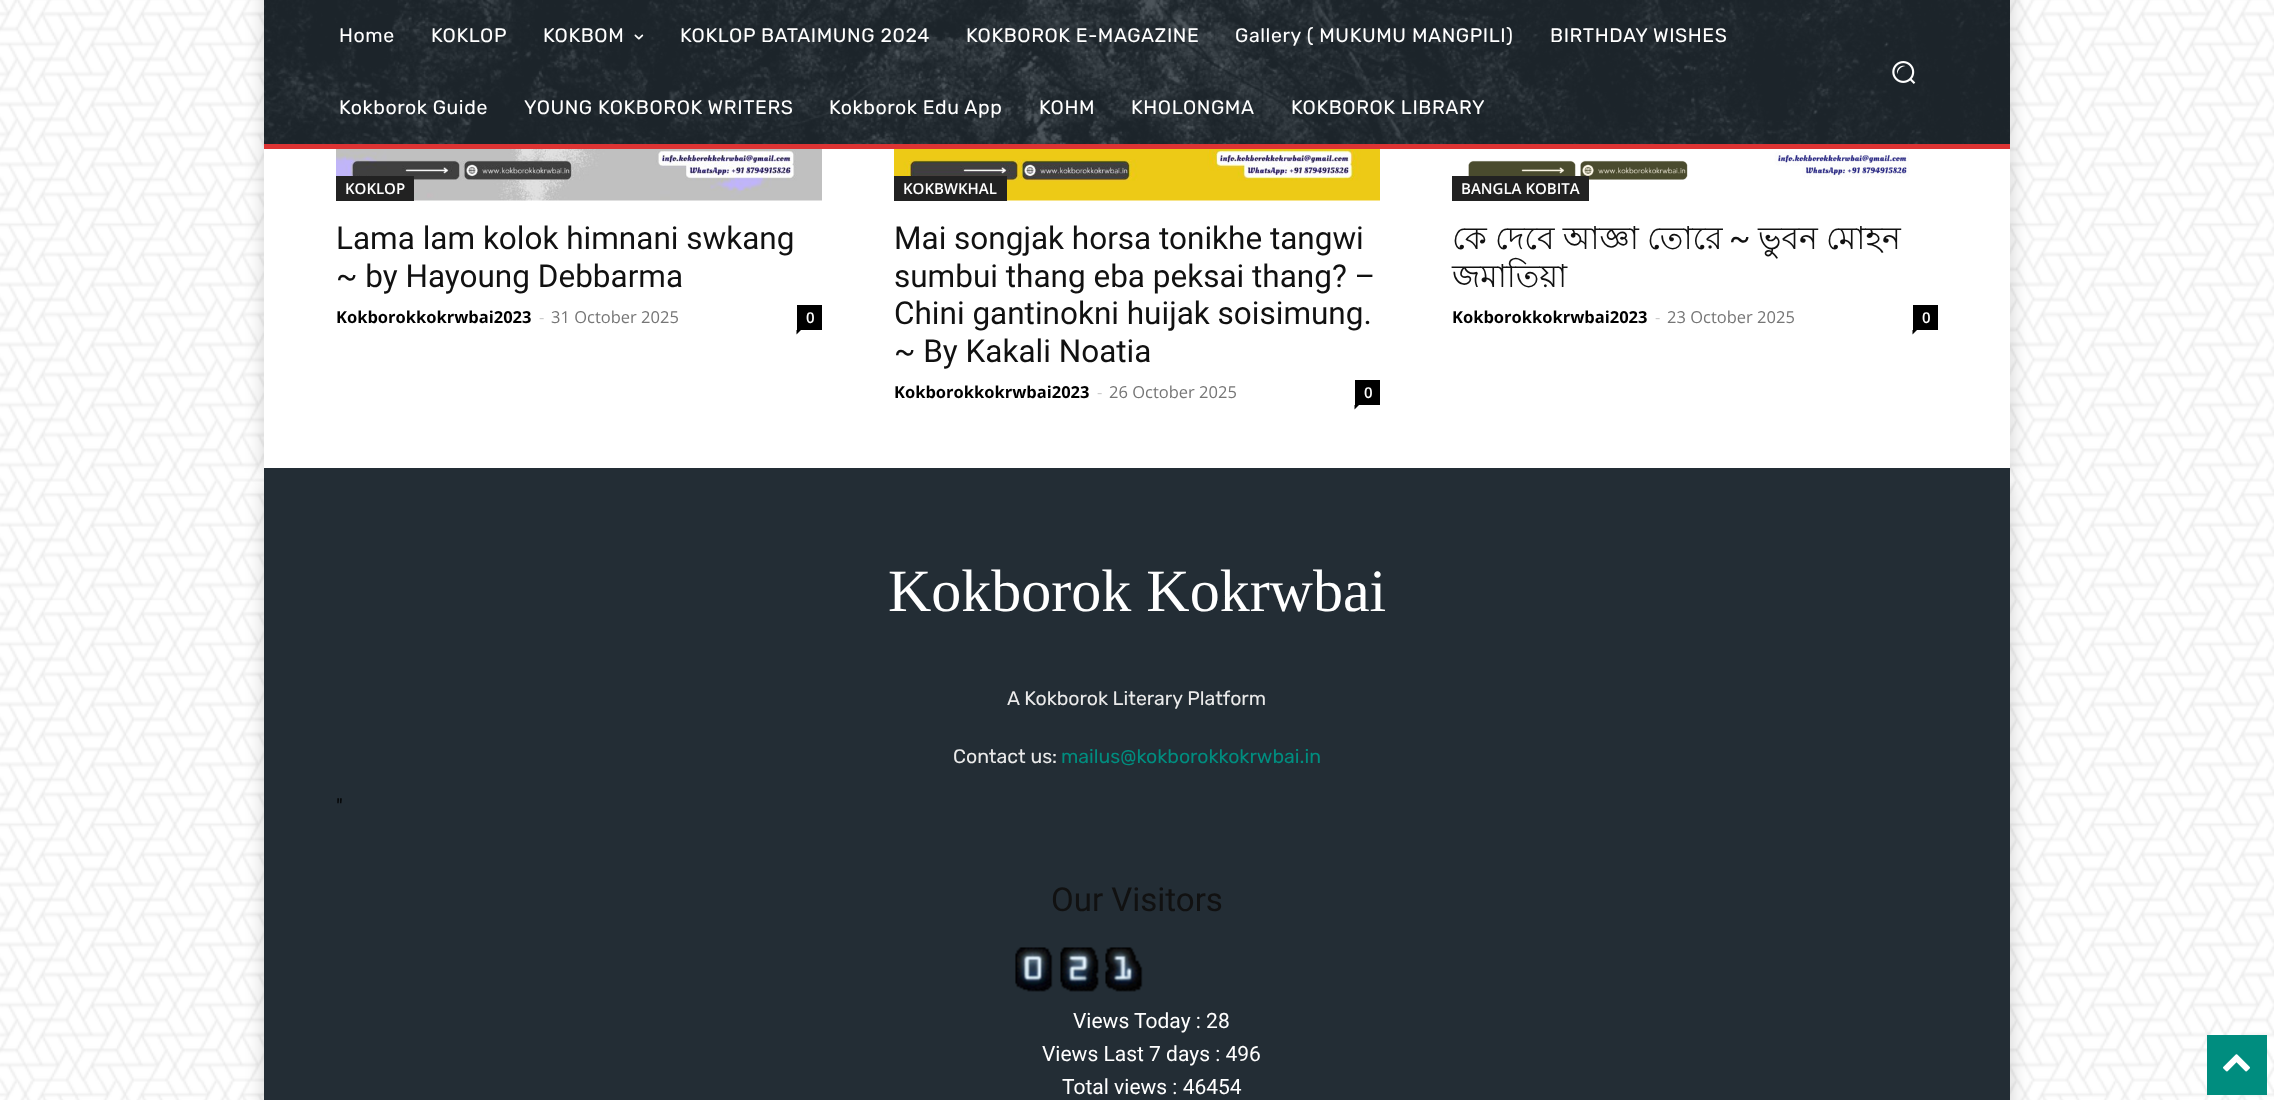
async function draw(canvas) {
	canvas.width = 2274;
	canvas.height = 1100;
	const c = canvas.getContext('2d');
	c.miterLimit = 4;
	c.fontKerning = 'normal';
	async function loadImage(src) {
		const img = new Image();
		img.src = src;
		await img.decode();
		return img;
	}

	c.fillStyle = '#fff';
	c.fillRect(0, 0, 2274, 1100);
	c.drawImage(await loadImage('img1.png'), 0, 0, 2274, 1100);
	c.fillStyle = '#0000001f';
	c.filter = 'blur(7.5px)';
	c.beginPath();
	c.rect(260, -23, 1755, 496);
	c.fill();
	c.filter = 'none';
	c.fillStyle = '#232d35';
	c.fillRect(264, 0, 1746, 144);
	c.drawImage(await loadImage('img2.png'), 264, 0, 1746, 144);
	c.letterSpacing = '0.6px';
	c.font = '19.5px Rubik';
	c.fillStyle = '#fff';
	for (const [text, x, y] of [
		['Home', 339, 42],
		['KOKLOP', 431, 42],
		['KOKBOM', 543, 42],
	]) {
		c.fillText(text, x, y);
	}
	c.drawImage(await loadImage('img3.png'), 634, 34, 10, 6);
	for (const [text, x, y] of [
		['KOKLOP BATAIMUNG 2024', 680, 42],
		['KOKBOROK E-MAGAZINE', 966, 42],
		['Gallery ( MUKUMU MANGPILI)', 1235, 42],
		['BIRTHDAY WISHES', 1550, 42],
		['Kokborok Guide', 339, 114],
		['YOUNG KOKBOROK WRITERS', 524, 114],
		['Kokborok Edu App', 829, 114],
		['KOHM', 1039, 114],
		['KHOLONGMA', 1131, 114],
		['KOKBOROK LIBRARY', 1291, 114],
	]) {
		c.fillText(text, x, y);
	}
	c.drawImage(await loadImage('img4.png'), 1892, 61, 24, 23);
	c.fillStyle = '#d33';
	c.fillRect(264, 144, 1746, 5);
	c.fillStyle = '#fff';
	c.fillRect(264, 149, 1746, 319);
	c.drawImage(await loadImage('img5.png'), 336, 149, 486, 52);
	c.fillStyle = '#222';
	c.fillRect(336, 176, 78, 25);
	c.letterSpacing = '0px';
	c.font = '600 15px Open Sans';
	c.fillStyle = '#fff';
	c.fillText('KOKLOP', 345, 194);
	c.font = '31.5px Roboto';
	c.fillStyle = '#111';
	c.fillText('Lama lam kolok himnani swkang', 336, 249);
	c.fillText('~ by Hayoung Debbarma', 336, 287);
	c.font = 'bold 16.5px Open Sans';
	c.fillStyle = '#000';
	c.fillText('Kokborokkokrwbai2023', 336, 323);
	c.font = '16.5px Open Sans';
	c.fillStyle = '#ccc';
	c.fillText('-', 539, 323);
	c.fillStyle = '#767676';
	c.fillText('31 October 2025', 551, 323);
	c.fillStyle = '#000';
	c.fillRect(797, 305, 25, 25);
	c.font = '600 15px Open Sans';
	c.fillStyle = '#fff';
	c.fillText('0', 806, 323);
	c.fillStyle = '#000';
	c.beginPath();
	c.moveTo(796.5, 330);
	c.lineTo(801, 330);
	c.lineTo(796.5, 334.5);
	c.closePath();
	c.fill();
	c.drawImage(await loadImage('img6.png'), 894, 149, 486, 52);
	c.fillStyle = '#222';
	c.fillRect(894, 176, 113, 25);
	c.fillStyle = '#fff';
	c.fillText('KOKBWKHAL', 903, 194);
	c.font = '31.5px Roboto';
	c.fillStyle = '#111';
	for (const [text, x, y] of [
		['Mai songjak horsa tonikhe tangwi', 894, 249],
		['sumbui thang eba peksai thang? –', 894, 287],
		['Chini gantinokni huijak soisimung.', 894, 324],
		['~ By Kakali Noatia', 894, 362],
	]) {
		c.fillText(text, x, y);
	}
	c.font = 'bold 16.5px Open Sans';
	c.fillStyle = '#000';
	c.fillText('Kokborokkokrwbai2023', 894, 398);
	c.font = '16.5px Open Sans';
	c.fillStyle = '#ccc';
	c.fillText('-', 1097, 398);
	c.fillStyle = '#767676';
	c.fillText('26 October 2025', 1109, 398);
	c.fillStyle = '#000';
	c.fillRect(1355, 380, 25, 25);
	c.font = '600 15px Open Sans';
	c.fillStyle = '#fff';
	c.fillText('0', 1364, 398);
	c.fillStyle = '#000';
	c.beginPath();
	c.moveTo(1354.5, 405);
	c.lineTo(1359, 405);
	c.lineTo(1354.5, 409.5);
	c.closePath();
	c.fill();
	c.drawImage(await loadImage('img7.png'), 1452, 149, 470, 31);
	c.fillStyle = '#222';
	c.fillRect(1452, 176, 137, 25);
	c.fillStyle = '#fff';
	c.fillText('BANGLA KOBITA', 1461, 194);
	c.wordSpacing = '-0.5px';
	c.font = '31.5px Lohit Bengali';
	c.fillStyle = '#111';
	c.fillText('কে দেবে আজ্ঞা তোরে', 1452, 249);
	c.wordSpacing = '0px';
	c.font = '31.5px Roboto';
	c.fillText('~', 1729, 249);
	c.wordSpacing = '-0.5px';
	c.font = '31.5px Lohit Bengali';
	c.fillText('ভুবন মোহন', 1758, 249);
	c.wordSpacing = '0px';
	c.fillText('জমাতিয়া', 1452, 287);
	c.font = 'bold 16.5px Open Sans';
	c.fillStyle = '#000';
	c.fillText('Kokborokkokrwbai2023', 1452, 323);
	c.font = '16.5px Open Sans';
	c.fillStyle = '#ccc';
	c.fillText('-', 1655, 323);
	c.fillStyle = '#767676';
	c.fillText('23 October 2025', 1667, 323);
	c.fillStyle = '#000';
	c.fillRect(1913, 305, 25, 25);
	c.font = '600 15px Open Sans';
	c.fillStyle = '#fff';
	c.fillText('0', 1922, 323);
	c.fillStyle = '#000';
	c.beginPath();
	c.moveTo(1912.5, 330);
	c.lineTo(1917, 330);
	c.lineTo(1912.5, 334.5);
	c.closePath();
	c.fill();
	c.fillStyle = '#0000001f';
	c.filter = 'blur(7.5px)';
	c.beginPath();
	c.rect(260, 483, 1755, 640);
	c.fill();
	c.filter = 'none';
	c.fillStyle = '#232d35';
	c.fillRect(264, 468, 1746, 632);
	c.font = '60px Liberation Serif';
	c.fillStyle = '#fff';
	c.fillText('Kokborok Kokrwbai', 888, 611);
	c.font = '19.5px Rubik';
	c.fillStyle = '#eaeaea';
	c.fillText('A Kokborok Literary Platform', 1007, 705);
	c.fillText('Contact us:', 953, 763);
	c.fillStyle = '#008d7f';
	c.fillText('mailus@kokborokkokrwbai.in', 1061, 763);
	c.font = '21px Roboto';
	c.fillStyle = '#000';
	c.fillText('"', 336, 814);
	c.font = '33px Roboto';
	c.fillStyle = '#111';
	c.fillText('Our Visitors', 1051, 911);
	c.drawImage(await loadImage('img8.png'), 1015, 947, 38, 45);
	c.drawImage(await loadImage('img9.png'), 1060, 947, 39, 45);
	c.drawImage(await loadImage('img10.png'), 1105, 947, 38, 45);
	c.font = '21px Roboto';
	c.fillStyle = '#fff';
	for (const [text, x, y] of [
		['Views Today : 28', 1073, 1028],
		['Views Last 7 days : 496', 1042, 1061],
		['Total views : 46454', 1062, 1094],
	]) {
		c.fillText(text, x, y);
	}
	c.fillStyle = '#008d7f';
	c.fillRect(2207, 1035, 60, 60);
	c.drawImage(await loadImage('img11.png'), 2223, 1054, 27, 18);
}

draw(document.querySelector('canvas'));
